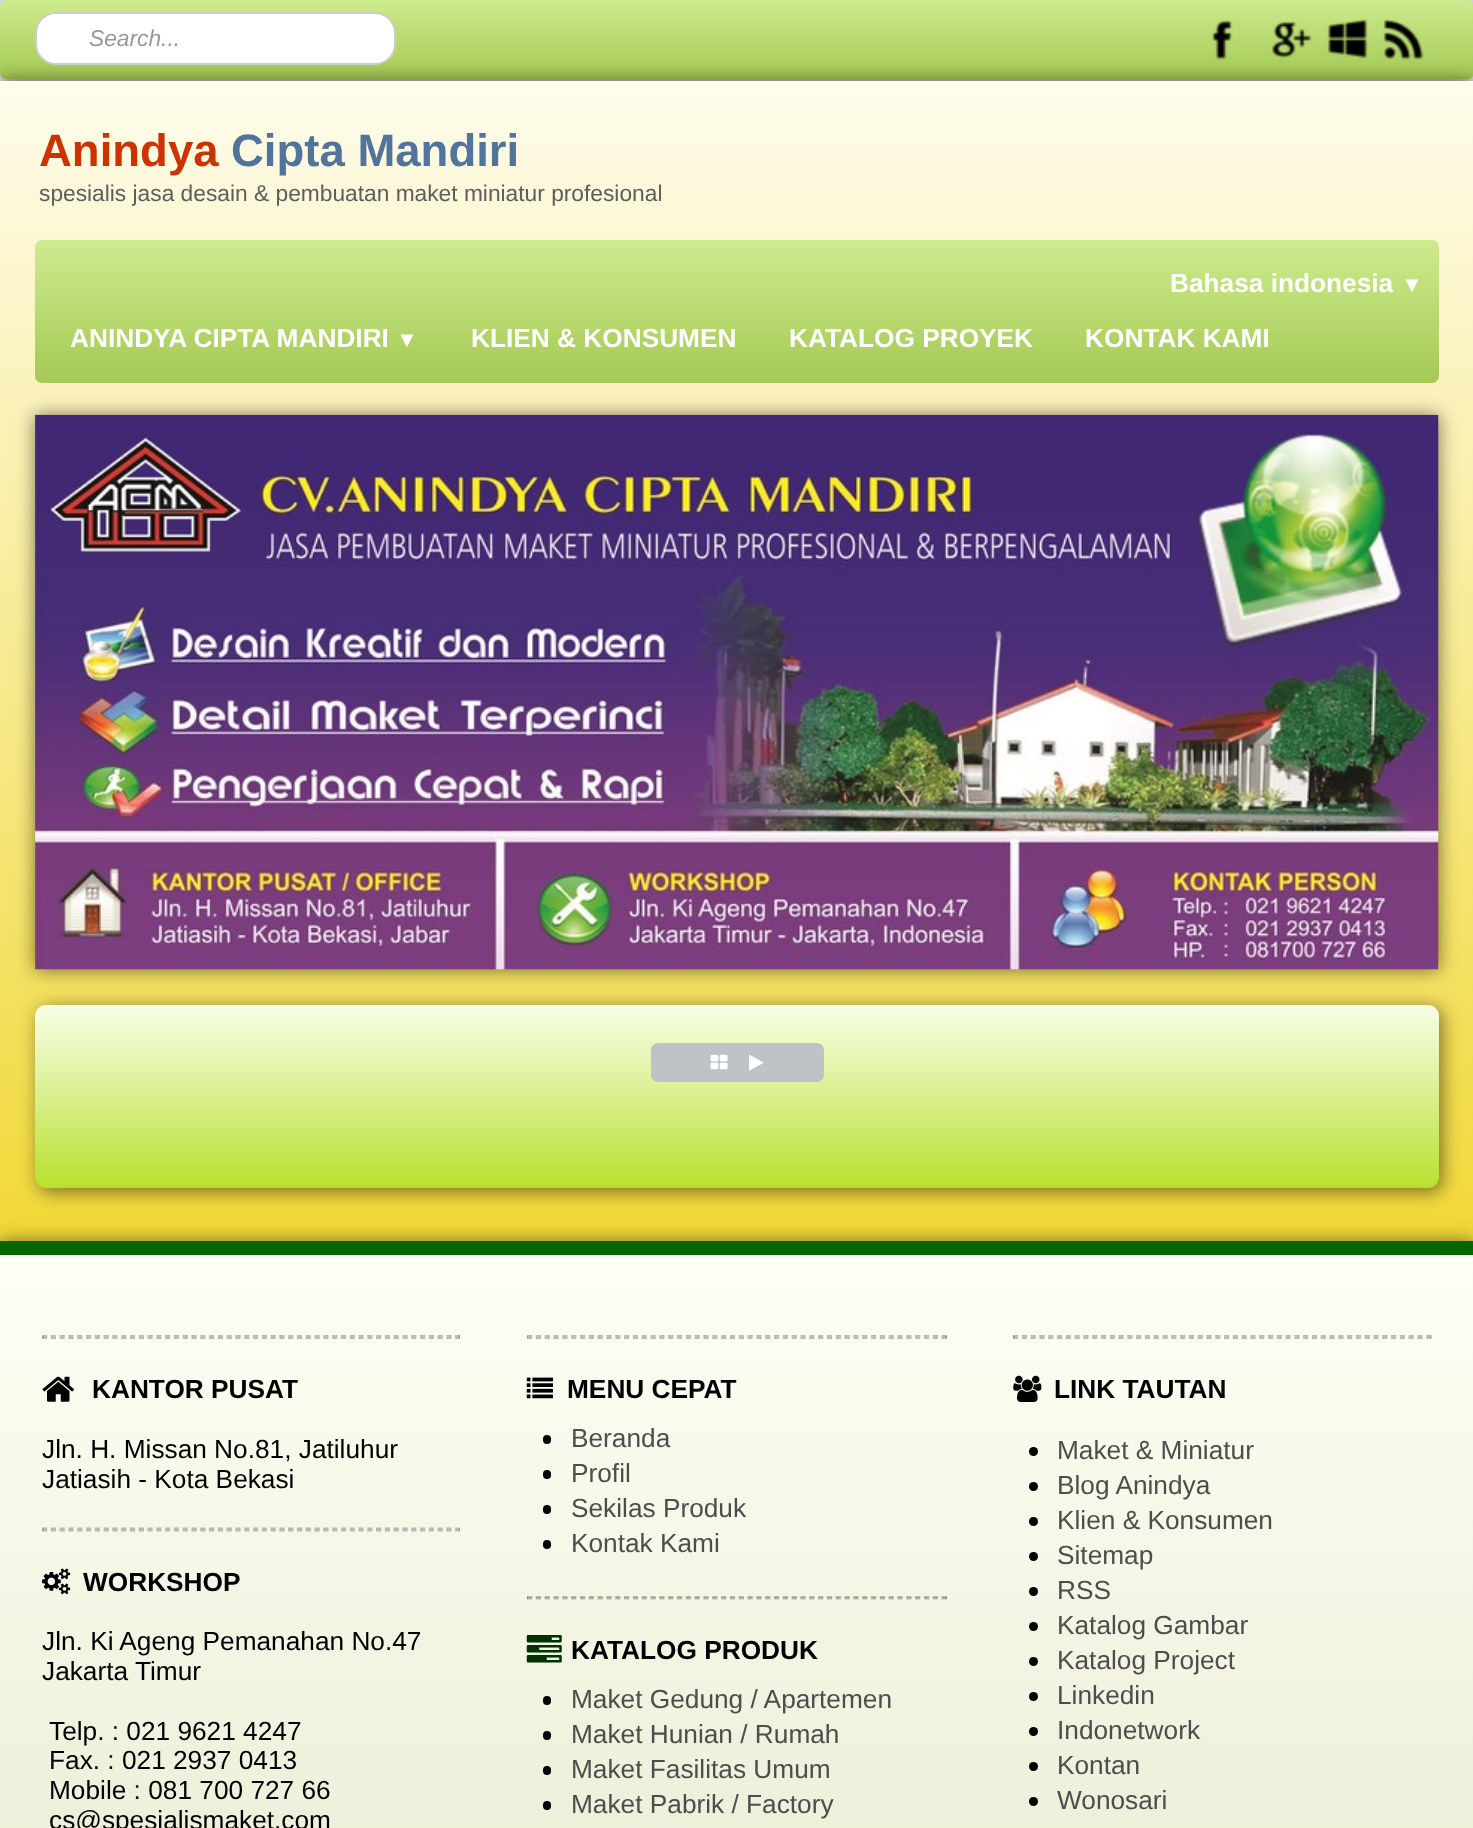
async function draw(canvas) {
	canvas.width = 1473;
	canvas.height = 1828;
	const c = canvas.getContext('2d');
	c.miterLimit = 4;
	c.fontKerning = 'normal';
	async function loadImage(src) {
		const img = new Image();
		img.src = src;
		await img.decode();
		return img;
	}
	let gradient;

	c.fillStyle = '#fff';
	c.fillRect(0, 0, 1473, 1828);
	gradient = c.createLinearGradient(737, 0, 737, 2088);
	gradient.addColorStop(0, '#f7f7f7');
	gradient.addColorStop(1, '#fff');
	c.fillStyle = gradient;
	c.fillRect(0, 0, 1473, 81);
	c.fillStyle = '#00000080';
	c.filter = 'blur(9px)';
	c.beginPath();
	c.roundRect(0, 0, 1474, 79, 7);
	c.fill();
	c.filter = 'none';
	gradient = c.createLinearGradient(737, 0, 737, 79);
	gradient.addColorStop(0, '#ceeb8e');
	gradient.addColorStop(1, '#a4c954');
	c.fillStyle = gradient;
	c.beginPath();
	c.roundRect(0, 0, 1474, 79, 7);
	c.fill();
	c.fillStyle = '#00000080';
	c.filter = 'blur(9px)';
	c.beginPath();
	c.rect(0, 81, 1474, 1160);
	c.fill();
	c.filter = 'none';
	c.fillStyle = '#fff';
	c.beginPath();
	c.roundRect(36, 13, 359, 51, 20);
	c.fill();
	c.strokeStyle = '#ccc';
	c.lineWidth = 2;
	c.stroke();
	c.font = 'italic 22.75px Liberation Sans';
	c.fillStyle = '#999';
	c.fillText('Search...', 89, 46);
	c.drawImage(await loadImage('img1.png'), 1212, 20, 21, 40);
	c.drawImage(await loadImage('img2.png'), 1271, 21, 41, 38);
	c.drawImage(await loadImage('img3.png'), 1327, 19, 41, 40);
	c.drawImage(await loadImage('img4.png'), 1383, 19, 41, 41);
	gradient = c.createLinearGradient(737, 80, 737, 1241);
	gradient.addColorStop(0, '#fefcec');
	gradient.addColorStop(1, '#f1d837');
	c.fillStyle = gradient;
	c.fillRect(0, 81, 1473, 1160);
	c.font = 'bold 45.5px Liberation Sans';
	c.fillStyle = '#c30';
	c.fillText('Anindya', 39, 166);
	c.fillStyle = '#50749b';
	c.fillText('Cipta Mandiri', 231, 166);
	c.font = '22.75px Liberation Sans';
	c.fillStyle = '#5e5e5e';
	c.fillText('spesialis jasa desain & pembuatan maket miniatur profesional', 39, 201);
	gradient = c.createLinearGradient(737, 240, 737, 383);
	gradient.addColorStop(0, '#ceeb8e');
	gradient.addColorStop(1, '#a4c954');
	c.fillStyle = gradient;
	c.beginPath();
	c.roundRect(35, 240, 1404, 143, 7);
	c.fill();
	c.font = 'bold 26.25px Liberation Sans';
	c.fillStyle = '#fff';
	c.fillText('Bahasa indonesia', 1170, 292);
	c.font = 'bold 22px Liberation Sans';
	c.fillText('▼', 1401, 292);
	c.font = 'bold 26.25px Liberation Sans';
	c.fillText('ANINDYA CIPTA MANDIRI', 70, 347);
	c.font = 'bold 22px Liberation Sans';
	c.fillText('▼', 396, 347);
	c.font = 'bold 26.25px Liberation Sans';
	for (const [text, x, y] of [
		['KLIEN & KONSUMEN', 471, 347],
		['KATALOG PROYEK', 789, 347],
		['KONTAK KAMI', 1085, 347],
	]) {
		c.fillText(text, x, y);
	}
	c.fillStyle = '#00000080';
	c.filter = 'blur(9px)';
	c.beginPath();
	c.rect(35, 415, 1404, 555);
	c.fill();
	c.filter = 'none';
	c.drawImage(await loadImage('img5.png'), 35, 414, 1404, 556);
	c.filter = 'blur(9px)';
	c.beginPath();
	c.roundRect(39, 1008, 1403, 184, 11);
	c.fill();
	c.filter = 'none';
	gradient = c.createLinearGradient(737, 1005, 737, 1188);
	gradient.addColorStop(0, '#f7ffe6');
	gradient.addColorStop(0.33, '#e4f5ad');
	gradient.addColorStop(1, '#b9e02e');
	c.fillStyle = gradient;
	c.beginPath();
	c.roundRect(35, 1005, 1404, 183, 11);
	c.fill();
	c.fillStyle = '#bdc3c7';
	c.beginPath();
	c.roundRect(652, 1044, 47, 37, [6, 0, 0, 6]);
	c.fill();
	c.strokeStyle = '#bdc3c7';
	c.stroke();
	c.fillRect(700, 1043, 75, 39);
	c.drawImage(await loadImage('img6.png'), 710, 1054, 18, 16);
	c.beginPath();
	c.roundRect(776, 1044, 47, 37, [0, 6, 6, 0]);
	c.fill();
	c.stroke();
	c.drawImage(await loadImage('img7.png'), 749, 1054, 15, 17);
	c.fillStyle = '#00000080';
	c.filter = 'blur(9px)';
	c.beginPath();
	c.rect(0, 1241, 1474, 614);
	c.fill();
	c.filter = 'none';
	gradient = c.createLinearGradient(737, 1255, 737, 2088);
	gradient.addColorStop(0, '#fcfff5');
	gradient.addColorStop(1, '#e9e9ce');
	c.fillStyle = gradient;
	c.fillRect(0, 1255, 1473, 573);
	c.fillStyle = '#060';
	c.fillRect(0, 1241, 1473, 14);
	c.beginPath();
	c.moveTo(42, 1336);
	c.lineTo(460, 1336);
	c.strokeStyle = '#bcbeb5';
	c.lineWidth = 1.8;
	c.setLineDash([5.25, 3.54]);
	c.stroke();
	c.fillStyle = '#00000040';
	c.beginPath();
	c.moveTo(460, 1335);
	c.lineTo(460, 1339);
	c.lineTo(458.5, 1337);
	c.closePath();
	c.fill();
	c.beginPath();
	c.moveTo(42, 1338);
	c.lineTo(460, 1338);
	c.strokeStyle = '#00000040';
	c.stroke();
	c.fillStyle = '#91938c';
	c.beginPath();
	c.moveTo(42, 1339);
	c.lineTo(42, 1335);
	c.lineTo(44, 1337);
	c.closePath();
	c.fill();
	c.drawImage(await loadImage('img8.png'), 42, 1376, 32, 26);
	c.fillStyle = '#000';
	c.fillText('KANTOR PUSAT', 92, 1398);
	c.font = '26.25px Liberation Sans';
	c.fillText('Jln. H. Missan No.81, Jatiluhur', 42, 1458);
	c.fillText('Jatiasih - Kota Bekasi', 42, 1488);
	c.beginPath();
	c.moveTo(42, 1528.5);
	c.lineTo(460, 1528.5);
	c.strokeStyle = '#b9baae';
	c.stroke();
	c.fillStyle = '#00000040';
	c.beginPath();
	c.moveTo(460, 1528);
	c.lineTo(460, 1531);
	c.lineTo(458.5, 1529.5);
	c.closePath();
	c.fill();
	c.beginPath();
	c.moveTo(42, 1530.5);
	c.lineTo(460, 1530.5);
	c.strokeStyle = '#00000040';
	c.stroke();
	c.beginPath();
	c.moveTo(42, 1531);
	c.lineTo(42, 1528);
	c.lineTo(44, 1529.5);
	c.closePath();
	c.fill();
	c.drawImage(await loadImage('img9.png'), 42, 1568, 29, 27);
	c.font = 'bold 26.25px Liberation Sans';
	c.fillStyle = '#000';
	c.fillText('WORKSHOP', 83, 1591);
	c.font = '26.25px Liberation Sans';
	for (const [text, x, y] of [
		['Jln. Ki Ageng Pemanahan No.47', 42, 1650],
		['Jakarta Timur', 42, 1680],
		['Telp. : 021 9621 4247', 49, 1740],
		['Fax. : 021 2937 0413', 49, 1769],
		['Mobile : 081 700 727 66', 49, 1799],
		['cs@spesialismaket.com', 49, 1829],
	]) {
		c.fillText(text, x, y);
	}
	c.beginPath();
	c.moveTo(527, 1336);
	c.lineTo(947, 1336);
	c.strokeStyle = '#bcbeb5';
	c.setLineDash([5.25, 3.57]);
	c.stroke();
	c.fillStyle = '#00000040';
	c.beginPath();
	c.moveTo(947, 1335);
	c.lineTo(947, 1339);
	c.lineTo(945, 1337);
	c.closePath();
	c.fill();
	c.beginPath();
	c.moveTo(527, 1338);
	c.lineTo(947, 1338);
	c.strokeStyle = '#00000040';
	c.stroke();
	c.fillStyle = '#91938c';
	c.beginPath();
	c.moveTo(527, 1339);
	c.lineTo(527, 1335);
	c.lineTo(528.5, 1337);
	c.closePath();
	c.fill();
	c.drawImage(await loadImage('img10.png'), 526, 1377, 27, 22);
	c.font = 'bold 26.25px Liberation Sans';
	c.fillStyle = '#000';
	c.fillText('MENU CEPAT', 567, 1398);
	c.beginPath();
	c.roundRect(543, 1435, 8, 9, 4);
	c.fill();
	c.font = '26.25px Liberation Sans';
	c.fillStyle = '#4d4d4d';
	c.fillText('Beranda', 571, 1447);
	c.fillStyle = '#000';
	c.beginPath();
	c.roundRect(543, 1470, 8, 9, 4);
	c.fill();
	c.fillStyle = '#4d4d4d';
	c.fillText('Profil', 571, 1482);
	c.fillStyle = '#000';
	c.beginPath();
	c.roundRect(543, 1505, 8, 9, 4);
	c.fill();
	c.fillStyle = '#4d4d4d';
	c.fillText('Sekilas Produk', 571, 1517);
	c.fillStyle = '#000';
	c.beginPath();
	c.roundRect(543, 1540, 8, 9, 4);
	c.fill();
	c.fillStyle = '#4d4d4d';
	c.fillText('Kontak Kami', 571, 1552);
	c.beginPath();
	c.moveTo(527, 1597);
	c.lineTo(947, 1597);
	c.strokeStyle = '#b7b9ac';
	c.stroke();
	c.fillStyle = '#00000040';
	c.beginPath();
	c.moveTo(947, 1596);
	c.lineTo(947, 1599.5);
	c.lineTo(945, 1598);
	c.closePath();
	c.fill();
	c.beginPath();
	c.moveTo(527, 1598.5);
	c.lineTo(947, 1598.5);
	c.strokeStyle = '#00000040';
	c.stroke();
	c.beginPath();
	c.moveTo(527, 1599.5);
	c.lineTo(527, 1596);
	c.lineTo(528.5, 1598);
	c.closePath();
	c.fill();
	c.drawImage(await loadImage('img11.png'), 526, 1635, 36, 28);
	c.font = 'bold 26.25px Liberation Sans';
	c.fillStyle = '#000';
	c.fillText('KATALOG PRODUK', 571, 1659);
	c.beginPath();
	c.roundRect(543, 1696, 8, 9, 4);
	c.fill();
	c.font = '26.25px Liberation Sans';
	c.fillStyle = '#4d4d4d';
	c.fillText('Maket Gedung / Apartemen', 571, 1708);
	c.fillStyle = '#000';
	c.beginPath();
	c.roundRect(543, 1731, 8, 9, 4);
	c.fill();
	c.fillStyle = '#4d4d4d';
	c.fillText('Maket Hunian / Rumah', 571, 1743);
	c.fillStyle = '#000';
	c.beginPath();
	c.roundRect(543, 1766, 8, 9, 4);
	c.fill();
	c.fillStyle = '#4d4d4d';
	c.fillText('Maket Fasilitas Umum', 571, 1778);
	c.fillStyle = '#000';
	c.beginPath();
	c.roundRect(543, 1801, 8, 9, 4);
	c.fill();
	c.fillStyle = '#4d4d4d';
	c.fillText('Maket Pabrik / Factory', 571, 1813);
	c.beginPath();
	c.moveTo(1013, 1336);
	c.lineTo(1431.5, 1336);
	c.strokeStyle = '#bcbeb5';
	c.setLineDash([5.25, 3.54]);
	c.stroke();
	c.fillStyle = '#00000040';
	c.beginPath();
	c.moveTo(1431.5, 1335);
	c.lineTo(1431.5, 1339);
	c.lineTo(1430, 1337);
	c.closePath();
	c.fill();
	c.beginPath();
	c.moveTo(1013, 1338);
	c.lineTo(1431.5, 1338);
	c.strokeStyle = '#00000040';
	c.stroke();
	c.fillStyle = '#91938c';
	c.beginPath();
	c.moveTo(1013, 1339);
	c.lineTo(1013, 1335);
	c.lineTo(1015, 1337);
	c.closePath();
	c.fill();
	c.drawImage(await loadImage('img12.png'), 1013, 1375, 29, 27);
	c.font = 'bold 26.25px Liberation Sans';
	c.fillStyle = '#000';
	c.fillText('LINK TAUTAN', 1054, 1398);
	c.beginPath();
	c.arc(1033.5, 1451.5, 4.5, 0, 2 * Math.PI);
	c.fill();
	c.font = '26.25px Liberation Sans';
	c.fillStyle = '#4d4d4d';
	c.fillText('Maket & Miniatur', 1057, 1459);
	c.fillStyle = '#000';
	c.beginPath();
	c.arc(1033.5, 1486.5, 4.5, 0, 2 * Math.PI);
	c.fill();
	c.fillStyle = '#4d4d4d';
	c.fillText('Blog Anindya', 1057, 1494);
	c.fillStyle = '#000';
	c.beginPath();
	c.arc(1033.5, 1521.5, 4.5, 0, 2 * Math.PI);
	c.fill();
	c.fillStyle = '#4d4d4d';
	c.fillText('Klien & Konsumen', 1057, 1529);
	c.fillStyle = '#000';
	c.beginPath();
	c.arc(1033.5, 1556.5, 4.5, 0, 2 * Math.PI);
	c.fill();
	c.fillStyle = '#4d4d4d';
	c.fillText('Sitemap', 1057, 1564);
	c.fillStyle = '#000';
	c.beginPath();
	c.arc(1033.5, 1591.5, 4.5, 0, 2 * Math.PI);
	c.fill();
	c.fillStyle = '#4d4d4d';
	c.fillText('RSS', 1057, 1599);
	c.fillStyle = '#000';
	c.beginPath();
	c.arc(1033.5, 1626.5, 4.5, 0, 2 * Math.PI);
	c.fill();
	c.fillStyle = '#4d4d4d';
	c.fillText('Katalog Gambar', 1057, 1634);
	c.fillStyle = '#000';
	c.beginPath();
	c.arc(1033.5, 1661.5, 4.5, 0, 2 * Math.PI);
	c.fill();
	c.fillStyle = '#4d4d4d';
	c.fillText('Katalog Project', 1057, 1669);
	c.fillStyle = '#000';
	c.beginPath();
	c.arc(1033.5, 1696.5, 4.5, 0, 2 * Math.PI);
	c.fill();
	c.fillStyle = '#4d4d4d';
	c.fillText('Linkedin', 1057, 1704);
	c.fillStyle = '#000';
	c.beginPath();
	c.arc(1033.5, 1731.5, 4.5, 0, 2 * Math.PI);
	c.fill();
	c.fillStyle = '#4d4d4d';
	c.fillText('Indonetwork', 1057, 1739);
	c.fillStyle = '#000';
	c.beginPath();
	c.arc(1033.5, 1766.5, 4.5, 0, 2 * Math.PI);
	c.fill();
	c.fillStyle = '#4d4d4d';
	c.fillText('Kontan', 1057, 1774);
	c.fillStyle = '#000';
	c.beginPath();
	c.arc(1033.5, 1801.5, 4.5, 0, 2 * Math.PI);
	c.fill();
	c.fillStyle = '#4d4d4d';
	c.fillText('Wonosari', 1057, 1809);
}

draw(document.querySelector('canvas'));
